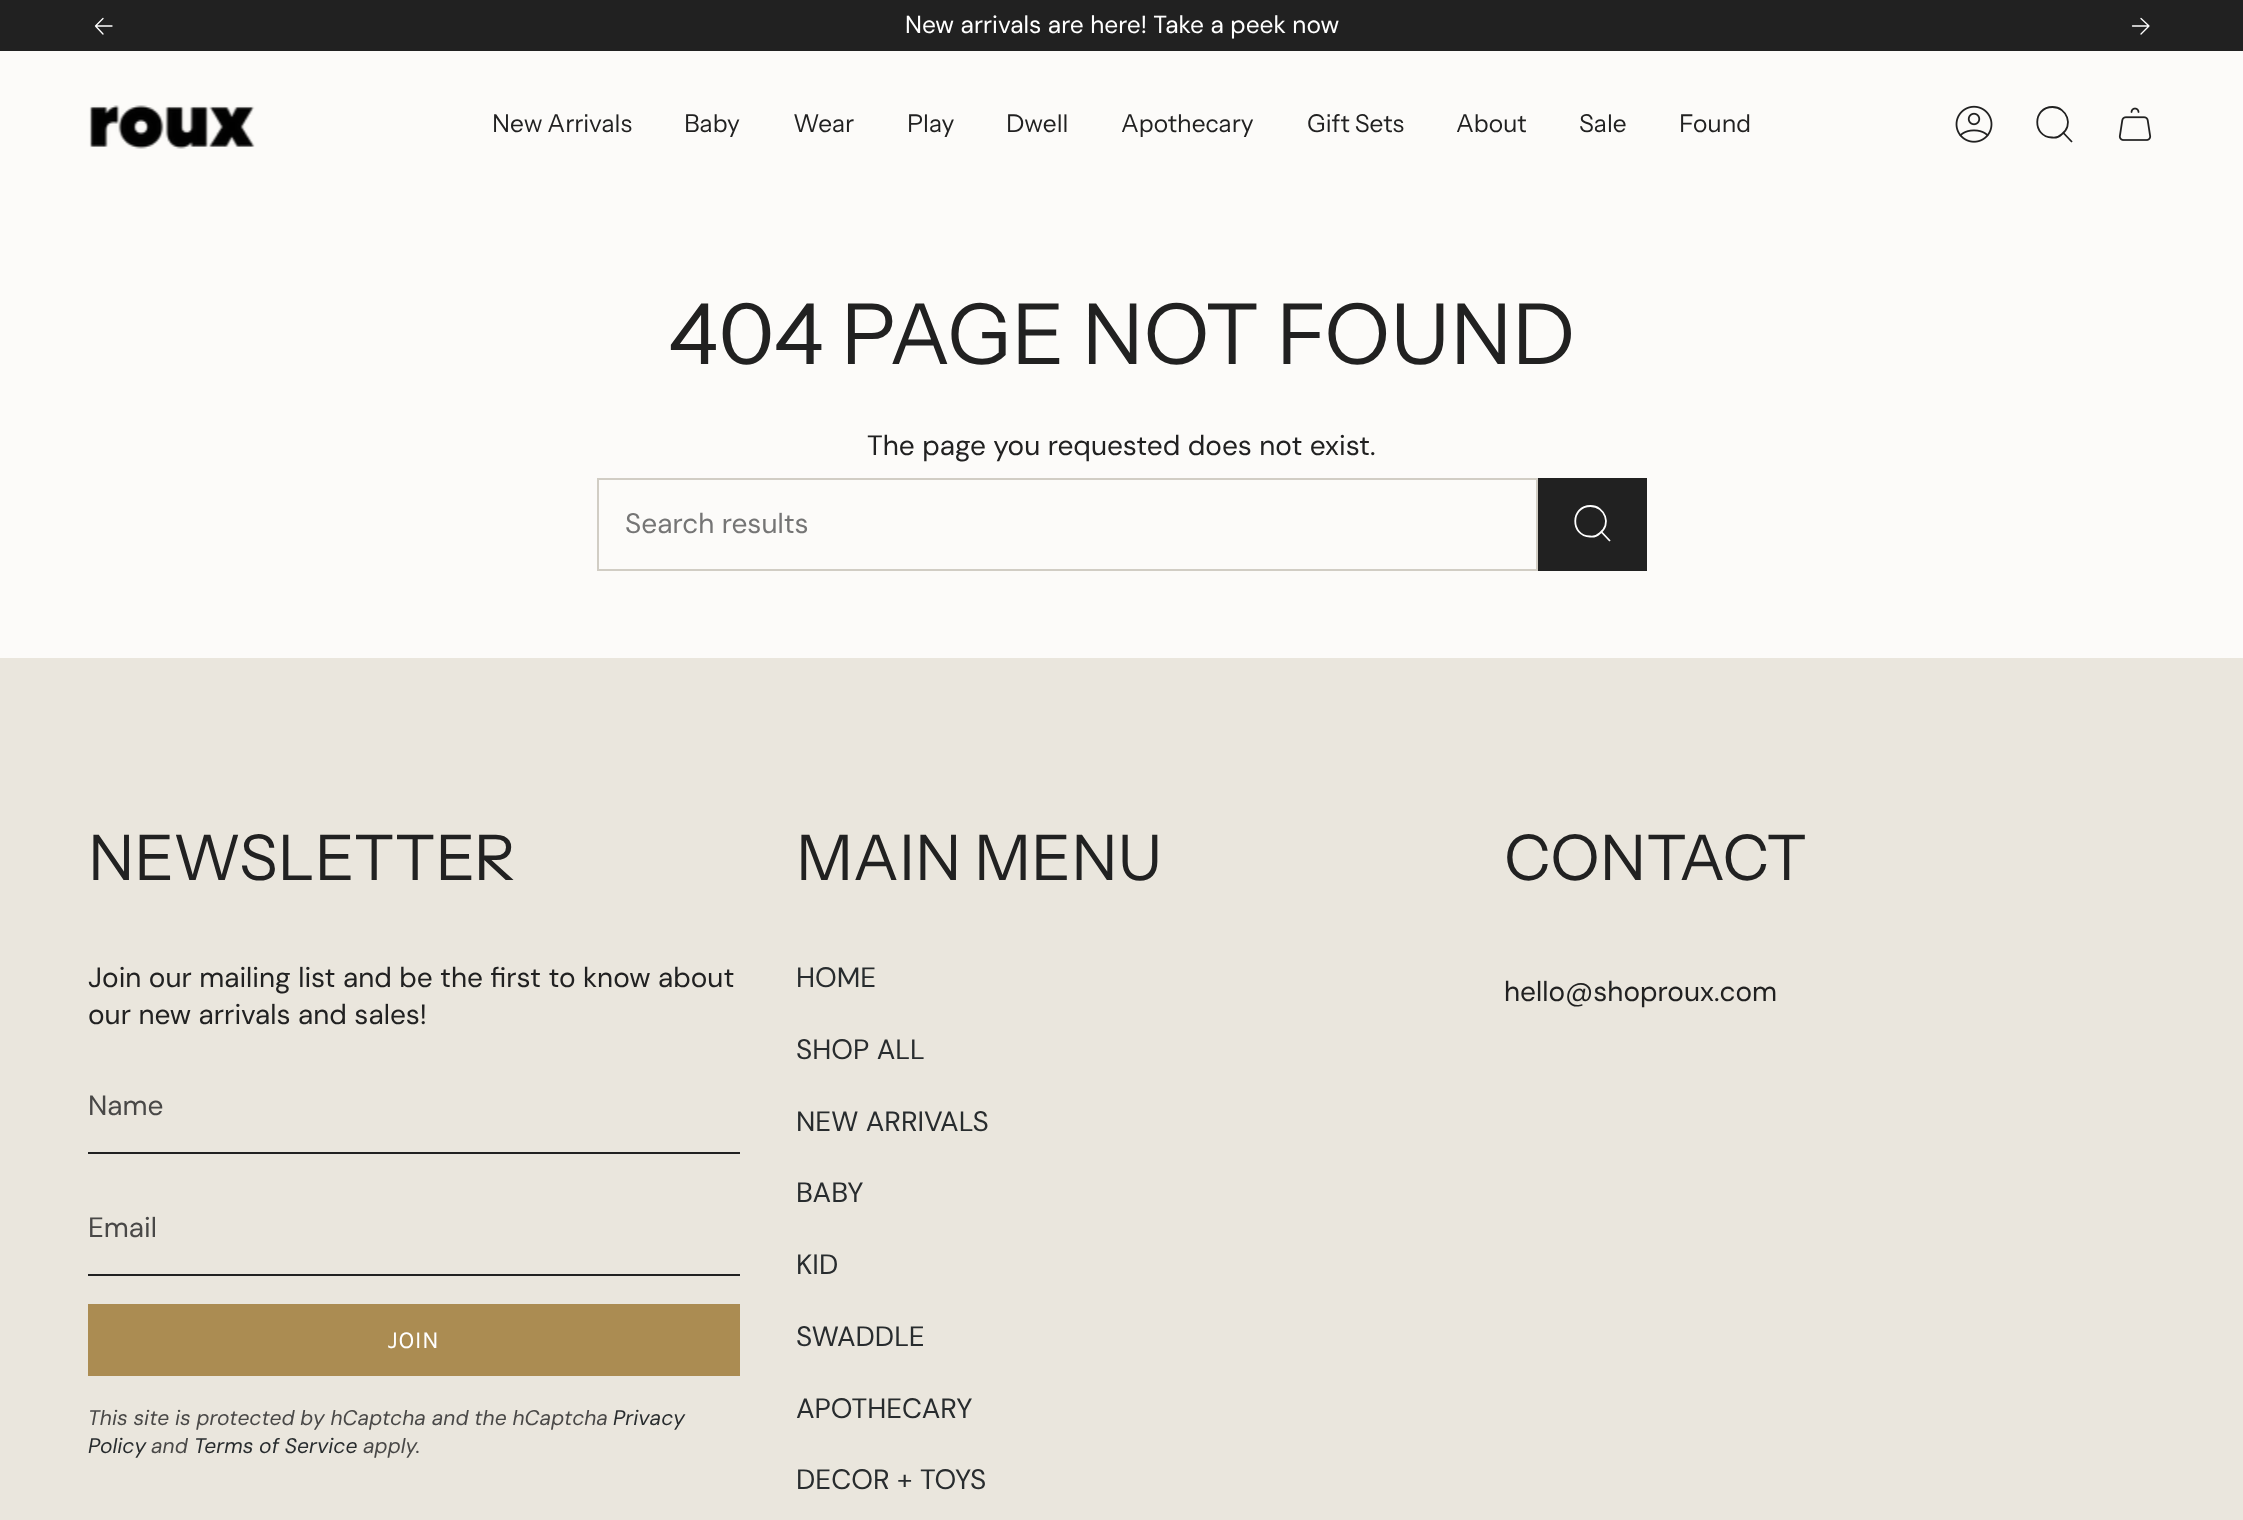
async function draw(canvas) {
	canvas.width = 2243;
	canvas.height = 1520;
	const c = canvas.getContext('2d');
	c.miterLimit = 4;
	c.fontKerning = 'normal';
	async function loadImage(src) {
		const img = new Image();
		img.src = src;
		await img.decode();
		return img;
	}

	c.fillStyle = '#fcfbf9';
	c.fillRect(0, 0, 2243, 1520);
	c.fillStyle = '#212121';
	c.fillRect(0, 0, 2243, 51);
	c.beginPath();
	c.moveTo(112, 26);
	c.lineTo(95.5, 26);
	c.moveTo(95.5, 26);
	c.lineTo(103, 18.5);
	c.moveTo(95.5, 26);
	c.lineTo(103, 34);
	c.strokeStyle = '#fff';
	c.lineWidth = 1.3;
	c.lineCap = 'round';
	c.lineJoin = 'round';
	c.stroke();
	c.font = '24.5px "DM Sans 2"';
	c.fillStyle = '#fff';
	c.fillText('New arrivals are here! Take a peek now', 905, 33);
	c.beginPath();
	c.moveTo(2132.5, 26);
	c.lineTo(2149, 26);
	c.moveTo(2149, 26);
	c.lineTo(2141, 18.5);
	c.moveTo(2149, 26);
	c.lineTo(2141, 34);
	c.stroke();
	c.drawImage(await loadImage('img1.png'), 89, 105, 166, 44);
	c.font = '24.5px Instrument Sans';
	c.fillStyle = '#212121';
	for (const [text, x, y] of [
		['New Arrivals', 492, 132],
		['Baby', 684, 132],
		['Wear', 793, 132],
		['Play', 907, 132],
		['Dwell', 1006, 132],
		['Apothecary', 1121, 132],
		['Gift Sets', 1307, 132],
		['About', 1456, 132],
		['Sale', 1579, 132],
		['Found', 1679, 132],
	]) {
		c.fillText(text, x, y);
	}
	c.drawImage(await loadImage('img2.png'), 1955, 105, 38, 38);
	c.beginPath();
	c.moveTo(2052.5, 107);
	c.bezierCurveTo(2067, 107, 2074, 126, 2061.5, 134.5);
	c.bezierCurveTo(2059, 137, 2055.5, 138, 2052, 137.5);
	c.bezierCurveTo(2032, 137, 2032.5, 107, 2052.5, 107);
	c.closePath();
	c.moveTo(2063.5, 133);
	c.lineTo(2072, 142);
	c.strokeStyle = '#212121';
	c.lineWidth = 1.8;
	c.lineCap = 'butt';
	c.lineJoin = 'miter';
	c.stroke();
	c.drawImage(await loadImage('img3.png'), 2118, 107, 34, 34);
	c.font = '84px Instrument Sans';
	c.fillText('404 PAGE NOT FOUND', 668, 364);
	c.font = '28px DM Sans';
	c.fillText('The page you requested does not exist.', 867, 455);
	c.strokeStyle = '#d1cdc4';
	c.lineWidth = 2;
	c.strokeRect(598, 479, 939, 91);
	c.fillStyle = '#757575';
	c.fillText('Search results', 625, 533);
	c.fillStyle = '#212121';
	c.fillRect(1538, 478, 109, 93);
	c.beginPath();
	c.moveTo(1590.5, 506);
	c.bezierCurveTo(1605, 506, 1612, 525, 1599.5, 533.5);
	c.bezierCurveTo(1597, 536, 1593.5, 537, 1590, 536.5);
	c.bezierCurveTo(1570, 536, 1570.5, 506, 1590.5, 506);
	c.closePath();
	c.moveTo(1601.5, 532);
	c.lineTo(1610, 541);
	c.strokeStyle = '#fff';
	c.lineWidth = 1.8;
	c.stroke();
	c.fillStyle = '#eae6dd';
	c.fillRect(0, 658, 2243, 862);
	c.font = '63px Instrument Sans';
	c.fillStyle = '#212121';
	c.fillText('NEWSLETTER', 88, 880);
	c.font = '28px DM Sans';
	c.fillText('Join our mailing list and be the first to know about', 88, 987);
	c.fillText('our new arrivals and sales!', 88, 1024);
	c.fillRect(88, 1152, 652, 2);
	c.fillStyle = '#494847';
	c.fillText('Name', 88, 1115);
	c.fillStyle = '#212121';
	c.fillRect(88, 1274, 652, 2);
	c.fillStyle = '#494847';
	c.fillText('Email', 88, 1237);
	c.fillStyle = '#ab8c52';
	c.fillRect(88, 1304, 652, 72);
	c.letterSpacing = '0.5px';
	c.font = '24.5px Karla';
	c.fillStyle = '#fff';
	c.fillText('JOIN', 388, 1348);
	c.letterSpacing = '0px';
	c.font = 'italic 21px DM Sans';
	c.fillStyle = '#494847';
	c.fillText('This site is protected by hCaptcha and the hCaptcha', 88, 1425);
	c.fillStyle = '#282c2e';
	c.fillText('Privacy', 613, 1425);
	c.fillText('Policy', 88, 1453);
	c.fillStyle = '#494847';
	c.fillText('and', 151, 1453);
	c.fillStyle = '#282c2e';
	c.fillText('Terms of Service', 194, 1453);
	c.fillStyle = '#494847';
	c.fillText('apply.', 363, 1453);
	c.font = '63px Instrument Sans';
	c.fillStyle = '#212121';
	c.fillText('MAIN MENU', 796, 880);
	c.font = '28px DM Sans';
	c.fillStyle = '#282c2e';
	for (const [text, x, y] of [
		['HOME', 796, 987],
		['SHOP ALL', 796, 1059],
		['NEW ARRIVALS', 796, 1131],
		['BABY', 796, 1202],
		['KID', 796, 1274],
		['SWADDLE', 796, 1346],
		['APOTHECARY', 796, 1418],
		['DECOR + TOYS', 796, 1489],
	]) {
		c.fillText(text, x, y);
	}
	c.font = '63px Instrument Sans';
	c.fillStyle = '#212121';
	c.fillText('CONTACT', 1504, 880);
	c.font = '28px DM Sans';
	c.fillText('hello@shoproux.com', 1504, 1001);
}

draw(document.querySelector('canvas'));
